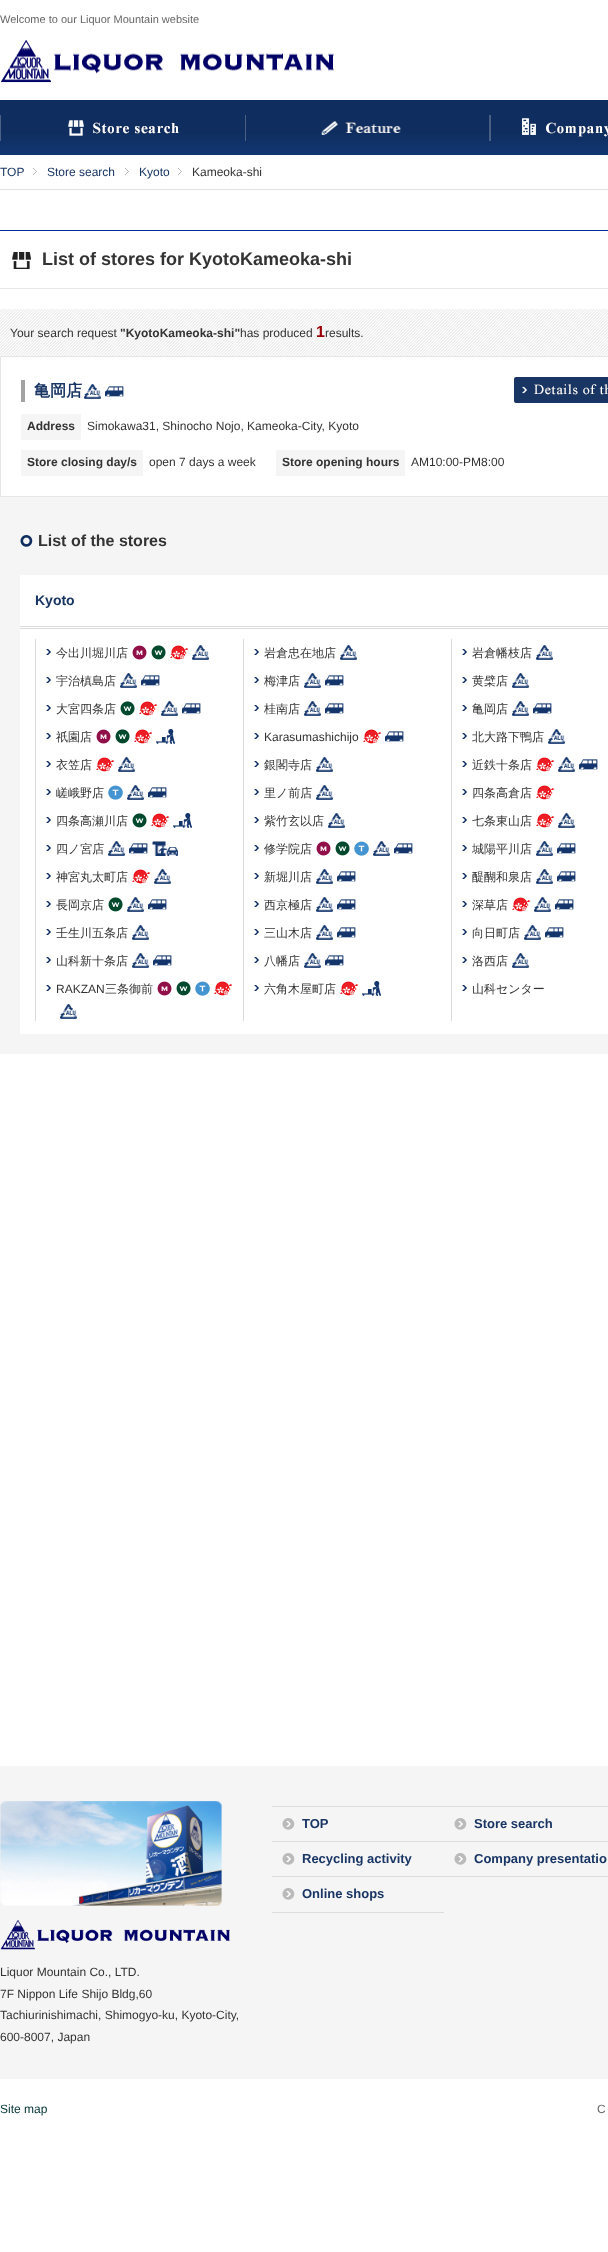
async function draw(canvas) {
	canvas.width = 608;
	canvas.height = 2252;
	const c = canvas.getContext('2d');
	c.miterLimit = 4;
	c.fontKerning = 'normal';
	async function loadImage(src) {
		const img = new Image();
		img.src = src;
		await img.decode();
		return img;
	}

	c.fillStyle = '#fff';
	c.fillRect(0, 0, 608, 2252);
	c.font = '11px Liberation Sans';
	c.fillStyle = '#666';
	c.fillText('Welcome to our Liquor Mountain website', 0, 23);
	c.drawImage(await loadImage('img1.png'), 1, 40, 333, 43);
	c.drawImage(await loadImage('img2.png'), 0, 100, 608, 55);
	c.drawImage(await loadImage('img3.png'), 0, 115, 179, 26);
	c.drawImage(await loadImage('img4.png'), 245, 115, 245, 26);
	c.drawImage(await loadImage('img5.png'), 490, 115, 118, 26);
	c.fillStyle = '#e2e2e2';
	c.fillRect(0, 189, 608, 1);
	c.drawImage(await loadImage('img6.png'), 33, 168, 4, 7);
	c.font = '12px Liberation Sans';
	c.fillStyle = '#183564';
	c.fillText('TOP', 0, 176);
	c.drawImage(await loadImage('img6.png'), 125, 168, 4, 7);
	c.fillText('Store search', 47, 176);
	c.drawImage(await loadImage('img6.png'), 178, 168, 4, 7);
	c.fillText('Kyoto', 139, 176);
	c.fillStyle = '#333';
	c.fillText('Kameoka-shi', 192, 176);
	c.fillStyle = '#002c99';
	c.fillRect(0, 230, 608, 1);
	c.fillStyle = '#e6e6e6';
	c.fillRect(0, 288, 608, 1);
	c.drawImage(await loadImage('img7.png'), 12, 252, 19, 17);
	c.font = 'bold 18px Liberation Sans';
	c.fillStyle = '#333';
	c.fillText('List of stores for KyotoKameoka-shi', 42, 265);
	c.drawImage(await loadImage('img8.png'), 0, 309, 608, 47);
	c.font = '12px Liberation Sans';
	c.fillText('Your search request', 10, 337);
	c.font = 'bold 12px Liberation Sans';
	c.fillText('"KyotoKameoka-shi"', 120, 337);
	c.font = '12px Liberation Sans';
	c.fillText('has produced', 240, 337);
	c.font = 'bold 16px Liberation Sans';
	c.fillStyle = '#990004';
	c.fillText('1', 316, 337);
	c.font = '12px Liberation Sans';
	c.fillStyle = '#333';
	c.fillText('results.', 325, 337);
	for (const [x, y, w, h, color] of [
		[0, 356, 608, 1, '#e6e6e6'],
		[0, 356, 1, 141, '#e6e6e6'],
		[1, 496, 607, 1, '#e6e6e6'],
		[21, 380, 4, 22, '#a3a3a3'],
	]) {
		c.fillStyle = color;
		c.fillRect(x, y, w, h);
	}
	c.font = 'bold 16px WenQuanYi Zen Hei';
	c.fillStyle = '#183564';
	c.fillText('亀岡店', 34, 396);
	c.drawImage(await loadImage('img9.png'), 84, 384, 17, 15);
	c.drawImage(await loadImage('img10.png'), 105, 386, 19, 11);
	c.drawImage(await loadImage('img11.png'), 514, 377, 94, 26);
	c.fillStyle = '#f5f5f5';
	c.fillRect(21, 414, 60, 26);
	c.font = 'bold 12px Liberation Sans';
	c.fillStyle = '#333';
	c.fillText('Address', 27, 430);
	c.font = '12px Liberation Sans';
	c.fillText('Simokawa31, Shinocho Nojo, Kameoka-City, Kyoto', 87, 430);
	c.fillStyle = '#f5f5f5';
	c.fillRect(21, 450, 122, 26);
	c.font = 'bold 12px Liberation Sans';
	c.fillStyle = '#333';
	c.fillText('Store closing day/s', 27, 466);
	c.font = '12px Liberation Sans';
	c.fillText('open 7 days a week', 149, 466);
	c.fillStyle = '#f5f5f5';
	c.fillRect(276, 450, 129, 26);
	c.font = 'bold 12px Liberation Sans';
	c.fillStyle = '#333';
	c.fillText('Store opening hours', 282, 466);
	c.font = '12px Liberation Sans';
	c.fillText('AM10:00-PM8:00', 411, 466);
	c.fillStyle = '#f5f5f5';
	c.fillRect(0, 497, 608, 557);
	c.drawImage(await loadImage('img12.png'), 20, 535, 13, 12);
	c.font = 'bold 16px Liberation Sans';
	c.fillStyle = '#333';
	c.fillText('List of the stores', 38, 546);
	for (const [x, y, w, h, color] of [
		[20, 575, 588, 459, '#fff'],
		[20, 626, 588, 1, '#dbdbdb'],
		[20, 628, 588, 1, '#dbdbdb'],
	]) {
		c.fillStyle = color;
		c.fillRect(x, y, w, h);
	}
	c.font = 'bold 14px Liberation Sans';
	c.fillStyle = '#183564';
	c.fillText('Kyoto', 35, 605);
	c.fillStyle = '#dbdbdb';
	c.fillRect(35, 639, 1, 382);
	c.drawImage(await loadImage('img13.png'), 46, 649, 5, 6);
	c.font = '500 12px WenQuanYi Zen Hei';
	c.fillStyle = '#333';
	c.fillText('今出川堀川店', 56, 657);
	c.drawImage(await loadImage('img14.png'), 132, 645, 15, 15);
	c.drawImage(await loadImage('img15.png'), 151, 645, 15, 15);
	c.drawImage(await loadImage('img16.png'), 170, 645, 18, 15);
	c.drawImage(await loadImage('img17.png'), 192, 645, 17, 15);
	c.fillStyle = '#dbdbdb';
	c.fillRect(243, 639, 1, 382);
	c.drawImage(await loadImage('img13.png'), 254, 649, 5, 6);
	c.fillStyle = '#333';
	c.fillText('岩倉忠在地店', 264, 657);
	c.drawImage(await loadImage('img9.png'), 340, 645, 17, 15);
	c.fillStyle = '#dbdbdb';
	c.fillRect(451, 639, 1, 382);
	c.drawImage(await loadImage('img13.png'), 462, 649, 5, 6);
	c.fillStyle = '#333';
	c.fillText('岩倉幡枝店', 472, 657);
	c.drawImage(await loadImage('img17.png'), 536, 645, 17, 15);
	c.drawImage(await loadImage('img13.png'), 46, 677, 5, 6);
	c.fillText('宇治槙島店', 56, 685);
	c.drawImage(await loadImage('img9.png'), 120, 673, 17, 15);
	c.drawImage(await loadImage('img10.png'), 141, 675, 19, 11);
	c.drawImage(await loadImage('img13.png'), 254, 677, 5, 6);
	c.fillText('梅津店', 264, 685);
	c.drawImage(await loadImage('img17.png'), 304, 673, 17, 15);
	c.drawImage(await loadImage('img18.png'), 325, 675, 19, 11);
	c.drawImage(await loadImage('img13.png'), 462, 677, 5, 6);
	c.fillText('黄檗店', 472, 685);
	c.drawImage(await loadImage('img9.png'), 512, 673, 17, 15);
	c.drawImage(await loadImage('img13.png'), 46, 705, 5, 6);
	c.fillText('大宮四条店', 56, 713);
	c.drawImage(await loadImage('img15.png'), 120, 701, 15, 15);
	c.drawImage(await loadImage('img16.png'), 139, 701, 18, 15);
	c.drawImage(await loadImage('img9.png'), 161, 701, 17, 15);
	c.drawImage(await loadImage('img18.png'), 182, 703, 19, 11);
	c.drawImage(await loadImage('img13.png'), 254, 705, 5, 6);
	c.fillText('桂南店', 264, 713);
	c.drawImage(await loadImage('img17.png'), 304, 701, 17, 15);
	c.drawImage(await loadImage('img18.png'), 325, 703, 19, 11);
	c.drawImage(await loadImage('img13.png'), 462, 705, 5, 6);
	c.fillText('亀岡店', 472, 713);
	c.drawImage(await loadImage('img9.png'), 512, 701, 17, 15);
	c.drawImage(await loadImage('img10.png'), 533, 703, 19, 11);
	c.drawImage(await loadImage('img13.png'), 46, 733, 5, 6);
	c.fillText('祇園店', 56, 741);
	c.drawImage(await loadImage('img14.png'), 96, 729, 15, 15);
	c.drawImage(await loadImage('img15.png'), 115, 729, 15, 15);
	c.drawImage(await loadImage('img16.png'), 134, 729, 18, 15);
	c.drawImage(await loadImage('img19.png'), 156, 729, 19, 15);
	c.drawImage(await loadImage('img13.png'), 254, 733, 5, 6);
	c.font = '12px Liberation Sans';
	c.fillText('Karasumashichijo', 264, 741);
	c.drawImage(await loadImage('img16.png'), 363, 729, 18, 15);
	c.drawImage(await loadImage('img18.png'), 385, 731, 19, 11);
	c.drawImage(await loadImage('img13.png'), 462, 733, 5, 6);
	c.font = '500 12px WenQuanYi Zen Hei';
	c.fillText('北大路下鴨店', 472, 741);
	c.drawImage(await loadImage('img9.png'), 548, 729, 17, 15);
	c.drawImage(await loadImage('img13.png'), 46, 761, 5, 6);
	c.fillText('衣笠店', 56, 769);
	c.drawImage(await loadImage('img16.png'), 96, 757, 18, 15);
	c.drawImage(await loadImage('img17.png'), 118, 757, 17, 15);
	c.drawImage(await loadImage('img13.png'), 254, 761, 5, 6);
	c.fillText('銀閣寺店', 264, 769);
	c.drawImage(await loadImage('img9.png'), 316, 757, 17, 15);
	c.drawImage(await loadImage('img13.png'), 462, 761, 5, 6);
	c.fillText('近鉄十条店', 472, 769);
	c.drawImage(await loadImage('img16.png'), 536, 757, 18, 15);
	c.drawImage(await loadImage('img17.png'), 558, 757, 17, 15);
	c.drawImage(await loadImage('img18.png'), 579, 759, 19, 11);
	c.drawImage(await loadImage('img13.png'), 46, 789, 5, 6);
	c.fillText('嵯峨野店', 56, 797);
	c.drawImage(await loadImage('img20.png'), 108, 785, 15, 15);
	c.drawImage(await loadImage('img9.png'), 127, 785, 17, 15);
	c.drawImage(await loadImage('img10.png'), 148, 787, 19, 11);
	c.drawImage(await loadImage('img13.png'), 254, 789, 5, 6);
	c.fillText('里ノ前店', 264, 797);
	c.drawImage(await loadImage('img9.png'), 316, 785, 17, 15);
	c.drawImage(await loadImage('img13.png'), 462, 789, 5, 6);
	c.fillText('四条高倉店', 472, 797);
	c.drawImage(await loadImage('img16.png'), 536, 785, 18, 15);
	c.drawImage(await loadImage('img13.png'), 46, 817, 5, 6);
	c.fillText('四条高瀬川店', 56, 825);
	c.drawImage(await loadImage('img15.png'), 132, 813, 15, 15);
	c.drawImage(await loadImage('img16.png'), 151, 813, 18, 15);
	c.drawImage(await loadImage('img21.png'), 173, 813, 19, 15);
	c.drawImage(await loadImage('img13.png'), 254, 817, 5, 6);
	c.fillText('紫竹玄以店', 264, 825);
	c.drawImage(await loadImage('img17.png'), 328, 813, 17, 15);
	c.drawImage(await loadImage('img13.png'), 462, 817, 5, 6);
	c.fillText('七条東山店', 472, 825);
	c.drawImage(await loadImage('img16.png'), 536, 813, 18, 15);
	c.drawImage(await loadImage('img17.png'), 558, 813, 17, 15);
	c.drawImage(await loadImage('img13.png'), 46, 845, 5, 6);
	c.fillText('四ノ宮店', 56, 853);
	c.drawImage(await loadImage('img9.png'), 108, 841, 17, 15);
	c.drawImage(await loadImage('img10.png'), 129, 843, 19, 11);
	c.drawImage(await loadImage('img22.png'), 152, 841, 26, 15);
	c.drawImage(await loadImage('img13.png'), 254, 845, 5, 6);
	c.fillText('修学院店', 264, 853);
	c.drawImage(await loadImage('img14.png'), 316, 841, 15, 15);
	c.drawImage(await loadImage('img15.png'), 335, 841, 15, 15);
	c.drawImage(await loadImage('img20.png'), 354, 841, 15, 15);
	c.drawImage(await loadImage('img17.png'), 373, 841, 17, 15);
	c.drawImage(await loadImage('img18.png'), 394, 843, 19, 11);
	c.drawImage(await loadImage('img13.png'), 462, 845, 5, 6);
	c.fillText('城陽平川店', 472, 853);
	c.drawImage(await loadImage('img17.png'), 536, 841, 17, 15);
	c.drawImage(await loadImage('img10.png'), 557, 843, 19, 11);
	c.drawImage(await loadImage('img13.png'), 46, 873, 5, 6);
	c.fillText('神宮丸太町店', 56, 881);
	c.drawImage(await loadImage('img16.png'), 132, 869, 18, 15);
	c.drawImage(await loadImage('img17.png'), 154, 869, 17, 15);
	c.drawImage(await loadImage('img13.png'), 254, 873, 5, 6);
	c.fillText('新堀川店', 264, 881);
	c.drawImage(await loadImage('img9.png'), 316, 869, 17, 15);
	c.drawImage(await loadImage('img18.png'), 337, 871, 19, 11);
	c.drawImage(await loadImage('img13.png'), 462, 873, 5, 6);
	c.fillText('醍醐和泉店', 472, 881);
	c.drawImage(await loadImage('img17.png'), 536, 869, 17, 15);
	c.drawImage(await loadImage('img10.png'), 557, 871, 19, 11);
	c.drawImage(await loadImage('img13.png'), 46, 901, 5, 6);
	c.fillText('長岡京店', 56, 909);
	c.drawImage(await loadImage('img15.png'), 108, 897, 15, 15);
	c.drawImage(await loadImage('img9.png'), 127, 897, 17, 15);
	c.drawImage(await loadImage('img10.png'), 148, 899, 19, 11);
	c.drawImage(await loadImage('img13.png'), 254, 901, 5, 6);
	c.fillText('西京極店', 264, 909);
	c.drawImage(await loadImage('img9.png'), 316, 897, 17, 15);
	c.drawImage(await loadImage('img18.png'), 337, 899, 19, 11);
	c.drawImage(await loadImage('img13.png'), 462, 901, 5, 6);
	c.fillText('深草店', 472, 909);
	c.drawImage(await loadImage('img16.png'), 512, 897, 18, 15);
	c.drawImage(await loadImage('img9.png'), 534, 897, 17, 15);
	c.drawImage(await loadImage('img18.png'), 555, 899, 19, 11);
	c.drawImage(await loadImage('img13.png'), 46, 929, 5, 6);
	c.fillText('壬生川五条店', 56, 937);
	c.drawImage(await loadImage('img9.png'), 132, 925, 17, 15);
	c.drawImage(await loadImage('img13.png'), 254, 929, 5, 6);
	c.fillText('三山木店', 264, 937);
	c.drawImage(await loadImage('img9.png'), 316, 925, 17, 15);
	c.drawImage(await loadImage('img18.png'), 337, 927, 19, 11);
	c.drawImage(await loadImage('img13.png'), 462, 929, 5, 6);
	c.fillText('向日町店', 472, 937);
	c.drawImage(await loadImage('img17.png'), 524, 925, 17, 15);
	c.drawImage(await loadImage('img10.png'), 545, 927, 19, 11);
	c.drawImage(await loadImage('img13.png'), 46, 957, 5, 6);
	c.fillText('山科新十条店', 56, 965);
	c.drawImage(await loadImage('img9.png'), 132, 953, 17, 15);
	c.drawImage(await loadImage('img18.png'), 153, 955, 19, 11);
	c.drawImage(await loadImage('img13.png'), 254, 957, 5, 6);
	c.fillText('八幡店', 264, 965);
	c.drawImage(await loadImage('img17.png'), 304, 953, 17, 15);
	c.drawImage(await loadImage('img18.png'), 325, 955, 19, 11);
	c.drawImage(await loadImage('img13.png'), 462, 957, 5, 6);
	c.fillText('洛西店', 472, 965);
	c.drawImage(await loadImage('img9.png'), 512, 953, 17, 15);
	c.drawImage(await loadImage('img13.png'), 46, 985, 5, 6);
	c.font = '12px Liberation Sans';
	c.fillText('RAKZAN', 56, 993);
	c.font = '500 12px WenQuanYi Zen Hei';
	c.fillText('三条御前', 105, 993);
	c.drawImage(await loadImage('img14.png'), 157, 981, 15, 15);
	c.drawImage(await loadImage('img15.png'), 176, 981, 15, 15);
	c.drawImage(await loadImage('img20.png'), 195, 981, 15, 15);
	c.drawImage(await loadImage('img16.png'), 214, 981, 18, 15);
	c.drawImage(await loadImage('img9.png'), 60, 1004, 17, 15);
	c.drawImage(await loadImage('img13.png'), 254, 985, 5, 6);
	c.fillText('六角木屋町店', 264, 993);
	c.drawImage(await loadImage('img16.png'), 340, 981, 18, 15);
	c.drawImage(await loadImage('img19.png'), 362, 981, 19, 15);
	c.drawImage(await loadImage('img13.png'), 462, 985, 5, 6);
	c.fillText('山科センター', 472, 993);
	for (const [x, y, w, h, color] of [
		[0, 1766, 608, 313, '#f5f5f5'],
		[272, 1806, 336, 1, '#ddd'],
		[272, 1841, 336, 1, '#ddd'],
	]) {
		c.fillStyle = color;
		c.fillRect(x, y, w, h);
	}
	c.drawImage(await loadImage('img23.png'), 282, 1818, 13, 12);
	c.font = 'bold 13px Liberation Sans';
	c.fillStyle = '#183564';
	c.fillText('TOP', 302, 1828);
	c.drawImage(await loadImage('img23.png'), 454, 1818, 13, 12);
	c.fillText('Store search', 474, 1828);
	c.fillStyle = '#ddd';
	c.fillRect(272, 1876, 336, 1);
	c.drawImage(await loadImage('img23.png'), 282, 1853, 13, 12);
	c.fillStyle = '#183564';
	c.fillText('Recycling activity', 302, 1863);
	c.drawImage(await loadImage('img23.png'), 454, 1853, 13, 12);
	c.fillText('Company presentatio', 474, 1863);
	c.fillStyle = '#ddd';
	c.fillRect(272, 1912, 172, 1);
	c.drawImage(await loadImage('img23.png'), 282, 1888, 13, 12);
	c.fillStyle = '#183564';
	c.fillText('Online shops', 302, 1898);
	c.drawImage(await loadImage('img24.png'), 0, 1801, 222, 105);
	c.drawImage(await loadImage('img25.png'), 0, 1920, 230, 30);
	c.font = '12px Liberation Sans';
	c.fillStyle = '#333';
	for (const [text, x, y] of [
		['Liquor Mountain Co., LTD.', 0, 1976],
		['7F Nippon Life Shijo Bldg,60', 0, 1998],
		['Tachiurinishimachi, Shimogyo-ku, Kyoto-City,', 0, 2019],
		['600-8007, Japan', 0, 2041],
	]) {
		c.fillText(text, x, y);
	}
	c.fillStyle = '#033333';
	c.fillText('Site map', 0, 2113);
	c.fillStyle = '#666';
	c.fillText('C', 597, 2113);
}

draw(document.querySelector('canvas'));
